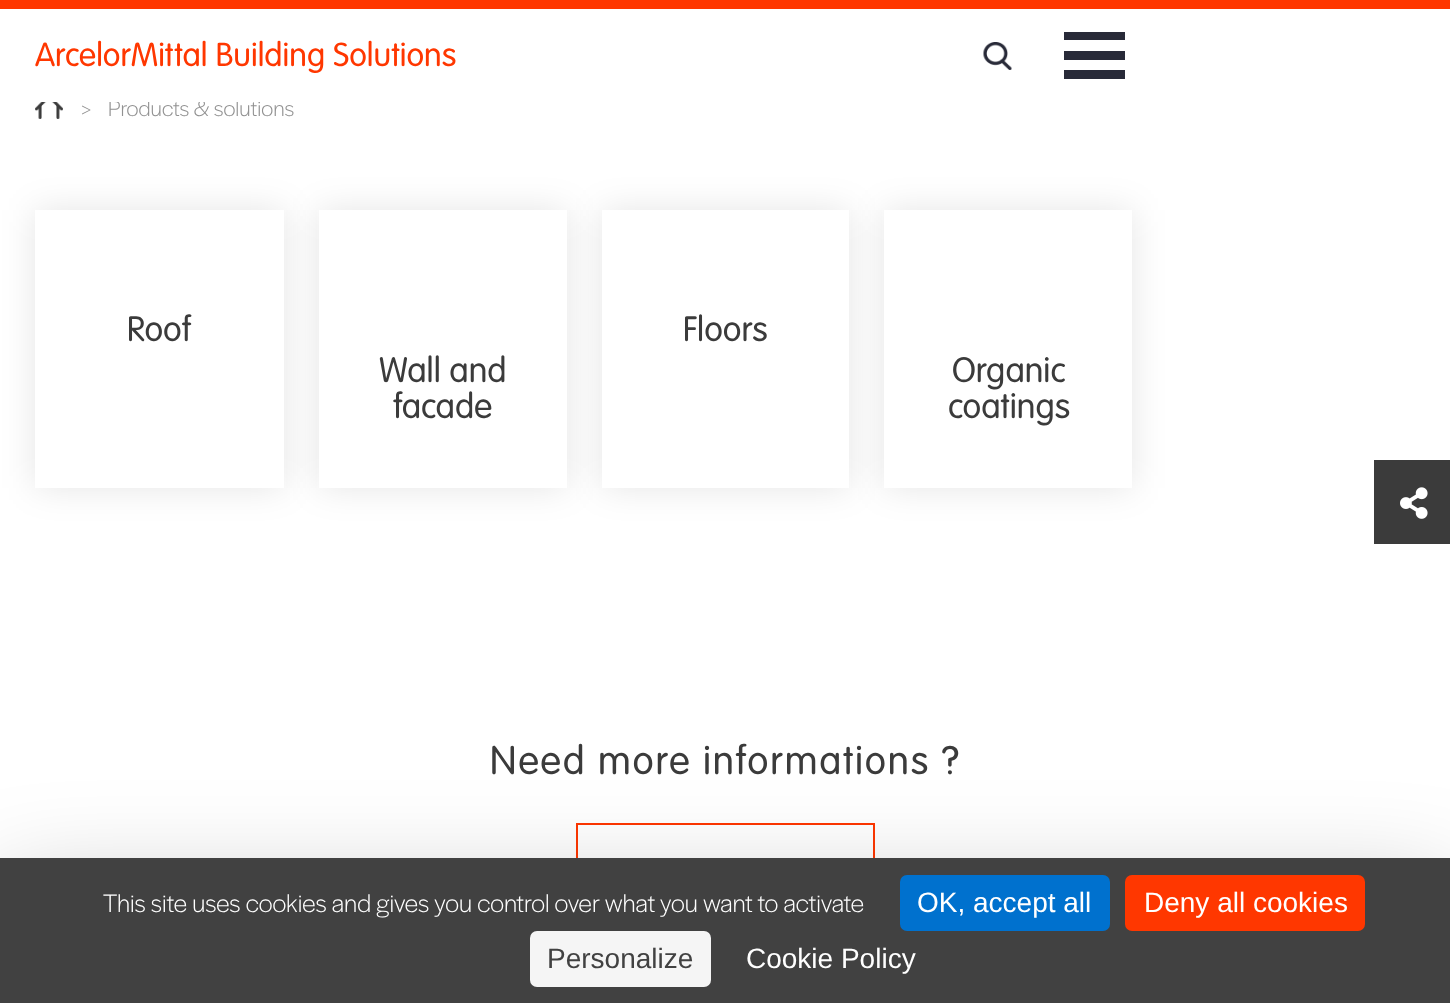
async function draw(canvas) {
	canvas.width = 1450;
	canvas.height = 1003;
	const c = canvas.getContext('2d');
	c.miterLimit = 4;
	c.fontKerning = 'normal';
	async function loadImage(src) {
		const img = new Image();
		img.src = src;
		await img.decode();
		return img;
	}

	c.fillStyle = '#fff';
	c.fillRect(0, 0, 1450, 1003);
	c.font = '300 22.75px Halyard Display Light';
	c.fillStyle = '#919191';
	c.fillText('Products & solutions', 108, 116);
	c.fillStyle = '#fff';
	c.fillRect(109, 100, 152, 2);
	c.fillStyle = '#ff3700';
	c.fillRect(0, 0, 1450, 9);
	c.font = '300 35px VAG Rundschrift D';
	c.fillText('ArcelorMittal Building Solutions', 35, 66);
	c.drawImage(await loadImage('img1.png'), 983, 42, 29, 28);
	for (const [x, y, w, h, color] of [
		[1064, 32, 61, 8, '#282a38'],
		[1064, 51, 61, 9, '#282a38'],
		[1064, 70, 61, 9, '#282a38'],
	]) {
		c.fillStyle = color;
		c.fillRect(x, y, w, h);
	}
	c.drawImage(await loadImage('img2.png'), 35, 102, 28, 17);
	c.font = '300 22.75px Halyard Display Light';
	c.fillStyle = '#919191';
	c.fillText('>', 81, 116);
	c.fillStyle = '#0000001a';
	c.filter = 'blur(17.5px)';
	c.beginPath();
	c.rect(35, 210, 249, 278);
	c.fill();
	c.filter = 'none';
	c.fillStyle = '#fff';
	c.fillRect(35, 210, 249, 278);
	c.font = '300 37px VAG Rundschrift D';
	c.fillStyle = '#3b3b3b';
	c.fillText('Roof', 127, 341);
	c.fillStyle = '#0000001a';
	c.filter = 'blur(17.5px)';
	c.beginPath();
	c.rect(602, 210, 247, 278);
	c.fill();
	c.filter = 'none';
	c.save();
	c.beginPath();
	c.moveTo(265, 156);
	c.lineTo(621, 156);
	c.lineTo(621, 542);
	c.lineTo(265, 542);
	c.closePath();
	c.moveTo(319, 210);
	c.lineTo(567, 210);
	c.lineTo(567, 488);
	c.lineTo(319, 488);
	c.closePath();
	c.clip('evenodd');
	c.filter = 'blur(17.5px)';
	c.beginPath();
	c.rect(319, 210, 248, 278);
	c.fill();
	c.filter = 'none';
	c.restore();
	c.fillStyle = '#fff';
	c.fillRect(602, 210, 247, 278);
	c.fillStyle = '#3b3b3b';
	for (const [text, x, y] of [
		['Floors', 683, 341],
		['Wall and', 379, 382],
		['facade', 393, 418],
	]) {
		c.fillText(text, x, y);
	}
	c.save();
	c.beginPath();
	c.moveTo(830, 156);
	c.lineTo(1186, 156);
	c.lineTo(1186, 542);
	c.lineTo(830, 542);
	c.closePath();
	c.moveTo(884, 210);
	c.lineTo(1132, 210);
	c.lineTo(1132, 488);
	c.lineTo(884, 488);
	c.closePath();
	c.clip('evenodd');
	c.fillStyle = '#0000001a';
	c.filter = 'blur(17.5px)';
	c.beginPath();
	c.rect(884, 210, 248, 278);
	c.fill();
	c.filter = 'none';
	c.restore();
	c.fillText('Organic', 952, 382);
	c.fillText('coatings', 948, 418);
	c.fillRect(1374, 460, 76, 84);
	c.drawImage(await loadImage('img3.png'), 1400, 487, 28, 32);
	c.letterSpacing = '1.75px';
	c.font = '300 42px VAG Rundschrift D';
	c.fillText('Need more informations ?', 490, 774);
	c.strokeStyle = '#ff3700';
	c.lineWidth = 2;
	c.strokeRect(577, 824, 297, 90);
	c.fillStyle = '#00000040';
	c.filter = 'blur(52.5px)';
	c.beginPath();
	c.rect(0, 893, 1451, 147);
	c.fill();
	c.filter = 'none';
	c.fillStyle = '#414141';
	c.fillRect(0, 858, 1450, 145);
	c.letterSpacing = '0px';
	c.font = '300 26.25px Halyard Display Light';
	c.fillStyle = '#fff';
	c.fillText('This site uses cookies and gives you control over what you want to activate', 103, 912);
	c.fillStyle = '#0071ce';
	c.beginPath();
	c.roundRect(900, 875, 210, 56, 7);
	c.fill();
	c.font = '28px Liberation Sans';
	c.fillStyle = '#fff';
	c.fillText('OK, accept all', 917, 912);
	c.fillStyle = '#ff3700';
	c.beginPath();
	c.roundRect(1125, 875, 240, 56, 7);
	c.fill();
	c.fillStyle = '#fff';
	c.fillText('Deny all cookies', 1144, 912);
	c.fillStyle = '#f5f5f5';
	c.beginPath();
	c.roundRect(530, 931, 181, 56, 7);
	c.fill();
	c.fillStyle = '#414141';
	c.fillText('Personalize', 547, 968);
	c.fillStyle = '#fff';
	c.fillText('Cookie Policy', 746, 968);
}

draw(document.querySelector('canvas'));
